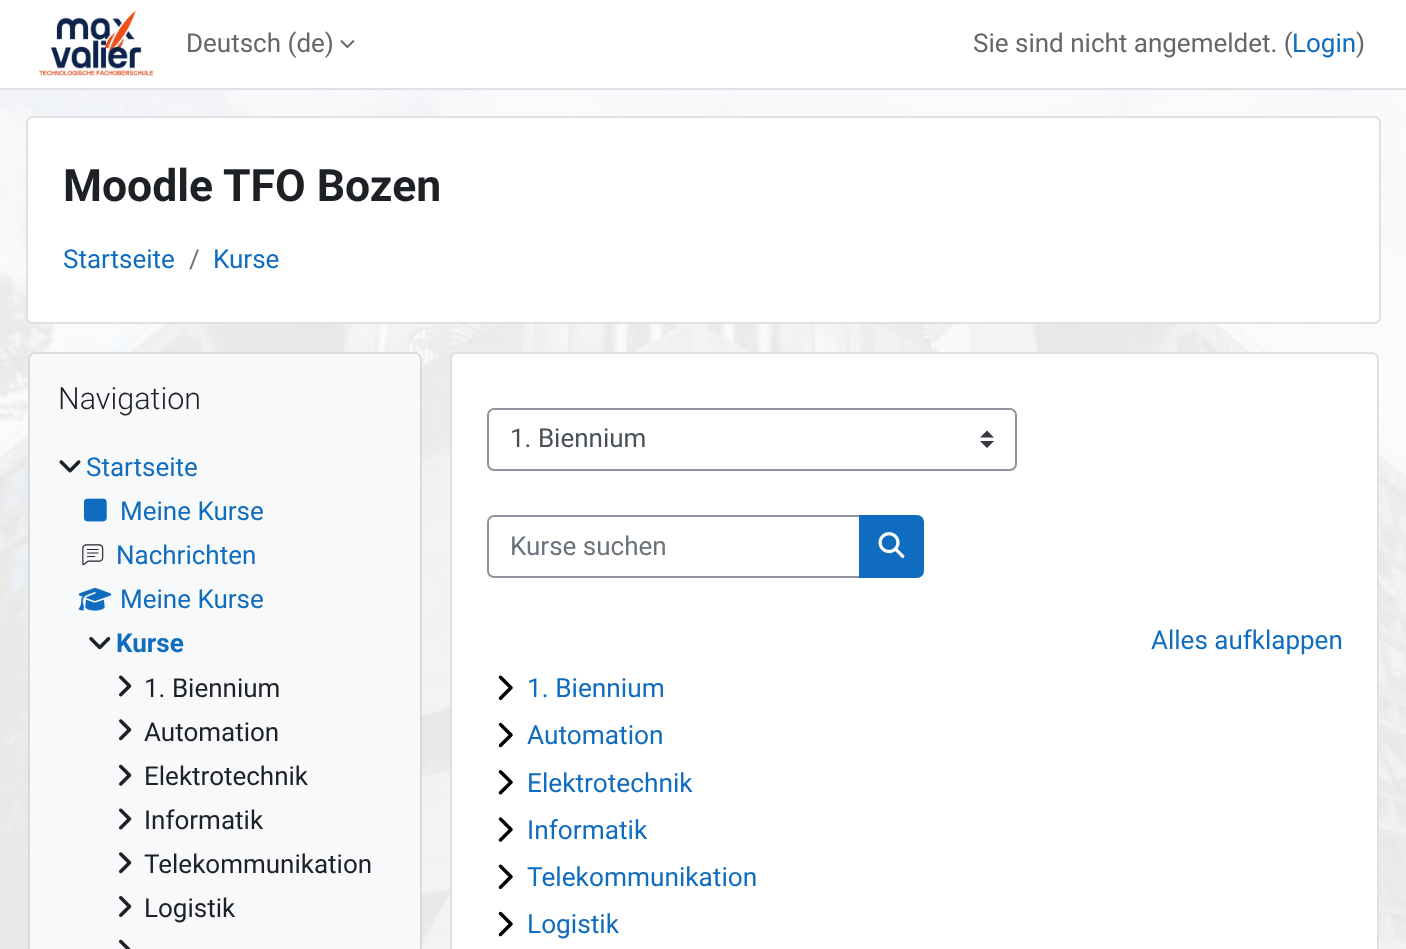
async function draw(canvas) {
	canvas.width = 1406;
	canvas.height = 949;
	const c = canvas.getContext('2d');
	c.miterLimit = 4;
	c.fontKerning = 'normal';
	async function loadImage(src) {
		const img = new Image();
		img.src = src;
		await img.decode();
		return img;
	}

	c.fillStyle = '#fff';
	c.fillRect(0, 0, 1406, 949);
	c.drawImage(await loadImage('img1.png'), 0, 90, 1406, 859);
	c.fillStyle = '#dee2e6';
	c.fillRect(0, 88, 1406, 2);
	c.drawImage(await loadImage('img2.png'), 39, 10, 115, 66);
	c.font = '26px Roboto';
	c.fillStyle = '#666';
	c.fillText('Deutsch (de)', 186, 52);
	c.drawImage(await loadImage('img3.png'), 340, 40, 15, 8);
	c.fillText('Sie sind nicht angemeldet. (', 973, 52);
	c.fillStyle = '#0f6cbf';
	c.fillText('Login', 1292, 52);
	c.fillStyle = '#666';
	c.fillText(')', 1356, 52);
	c.fillStyle = '#fff';
	c.beginPath();
	c.roundRect(26, 116, 1355, 208, 7);
	c.fill();
	c.beginPath();
	c.roundRect(27, 117, 1353, 206, 6);
	c.strokeStyle = '#0000001f';
	c.lineWidth = 2;
	c.stroke();
	c.font = 'bold 44.5px Roboto';
	c.fillStyle = '#1d2125';
	c.fillText('Moodle TFO Bozen', 63, 201);
	c.font = '26px Roboto';
	c.fillStyle = '#0f6cbf';
	c.fillText('Startseite', 63, 268);
	c.fillStyle = '#6a737b';
	c.fillText('/', 189, 268);
	c.fillStyle = '#0f6cbf';
	c.fillText('Kurse', 213, 268);
	c.fillStyle = '#f8f9fa';
	c.beginPath();
	c.roundRect(28, 352, 394, 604, 7);
	c.fill();
	c.beginPath();
	c.roundRect(29, 353, 392, 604, 6);
	c.stroke();
	c.font = '300 30.5px Roboto';
	c.fillStyle = '#1d2125';
	c.fillText('Navigation', 58, 409);
	c.drawImage(await loadImage('img4.png'), 59, 460, 22, 13);
	c.font = '26px Roboto';
	c.fillStyle = '#0f6cbf';
	c.fillText('Startseite', 86, 476);
	c.drawImage(await loadImage('img5.png'), 84, 498, 23, 24);
	c.fillText('Meine Kurse', 120, 520);
	c.drawImage(await loadImage('img6.png'), 82, 544, 22, 22);
	c.fillText('Nachrichten', 116, 564);
	c.drawImage(await loadImage('img7.png'), 78, 588, 34, 23);
	c.fillText('Meine Kurse', 120, 608);
	c.drawImage(await loadImage('img8.png'), 89, 637, 22, 13);
	c.font = 'bold 26px Roboto';
	c.fillText('Kurse', 116, 652);
	c.drawImage(await loadImage('img9.png'), 119, 675, 13, 22);
	c.font = '26px Roboto';
	c.fillStyle = '#1d2125';
	c.fillText('1. Biennium', 144, 697);
	c.drawImage(await loadImage('img10.png'), 119, 719, 13, 22);
	c.fillText('Automation', 144, 741);
	c.drawImage(await loadImage('img11.png'), 119, 764, 13, 22);
	c.fillText('Elektrotechnik', 144, 785);
	c.drawImage(await loadImage('img9.png'), 119, 808, 13, 22);
	c.fillText('Informatik', 144, 829);
	c.drawImage(await loadImage('img10.png'), 119, 852, 13, 22);
	c.fillText('Telekommunikation', 144, 873);
	c.drawImage(await loadImage('img12.png'), 119, 896, 13, 21);
	c.fillText('Logistik', 144, 917);
	c.drawImage(await loadImage('img13.png'), 119, 939, 12, 10);
	c.fillStyle = '#fff';
	c.beginPath();
	c.roundRect(450, 352, 929, 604, 7);
	c.fill();
	c.beginPath();
	c.roundRect(451, 353, 927, 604, 6);
	c.stroke();
	c.fillStyle = '#343a40';
	c.beginPath();
	c.moveTo(987, 430.5);
	c.lineTo(980, 437.5);
	c.lineTo(994, 437.5);
	c.closePath();
	c.moveTo(987, 448);
	c.lineTo(980, 441);
	c.lineTo(994, 441);
	c.closePath();
	c.fill();
	c.beginPath();
	c.roundRect(488, 409, 528, 61, 6);
	c.strokeStyle = '#8f959e';
	c.stroke();
	c.fillStyle = '#495057';
	c.fillText('1. Biennium', 510, 447);
	c.beginPath();
	c.roundRect(488, 516, 372, 61, [6, 0, 0, 6]);
	c.stroke();
	c.fillStyle = '#6a737b';
	c.fillText('Kurse suchen', 510, 555);
	c.fillStyle = '#0f6cbf';
	c.beginPath();
	c.roundRect(860, 516, 63, 61, [0, 6, 6, 0]);
	c.fill();
	c.strokeStyle = '#0f6cbf';
	c.stroke();
	c.drawImage(await loadImage('img14.png'), 878, 532, 27, 26);
	c.fillText('Alles aufklappen', 1151, 649);
	c.drawImage(await loadImage('img15.png'), 498, 675, 15, 25);
	c.font = '26.25px Roboto';
	c.fillText('1. Biennium', 527, 697);
	c.drawImage(await loadImage('img16.png'), 498, 722, 15, 26);
	c.fillText('Automation', 527, 744);
	c.drawImage(await loadImage('img17.png'), 498, 770, 15, 25);
	c.fillText('Elektrotechnik', 527, 792);
	c.drawImage(await loadImage('img18.png'), 498, 817, 15, 25);
	c.fillText('Informatik', 527, 839);
	c.drawImage(await loadImage('img15.png'), 498, 864, 15, 25);
	c.fillText('Telekommunikation', 527, 886);
	c.drawImage(await loadImage('img16.png'), 498, 911, 15, 26);
	c.fillText('Logistik', 527, 933);
}

draw(document.querySelector('canvas'));
